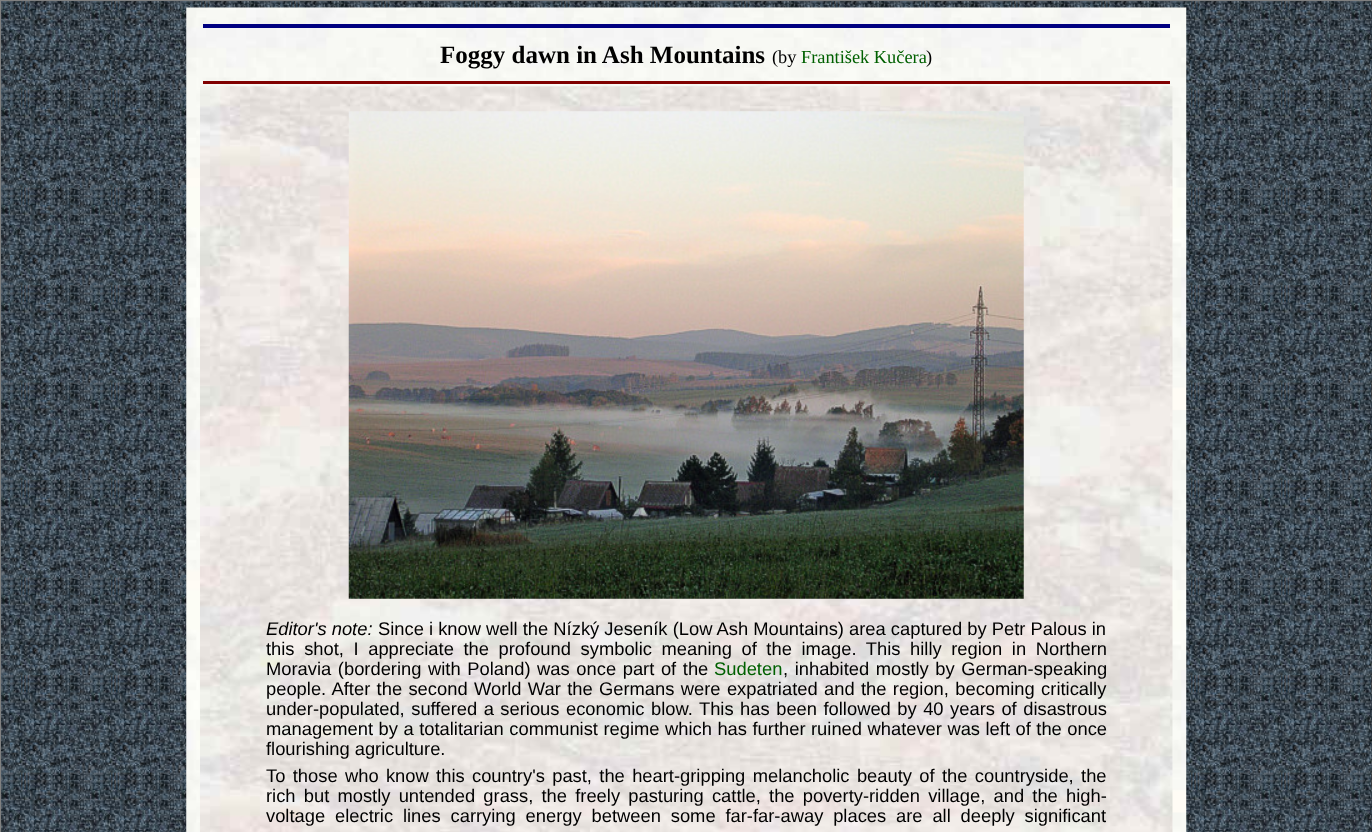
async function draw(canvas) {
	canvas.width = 1372;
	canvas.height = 832;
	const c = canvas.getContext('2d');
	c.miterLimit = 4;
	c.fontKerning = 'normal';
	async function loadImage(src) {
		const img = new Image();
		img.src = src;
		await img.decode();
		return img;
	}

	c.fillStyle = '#fff';
	c.fillRect(0, 0, 1372, 832);
	c.drawImage(await loadImage('img1.png'), 1, 1, 1371, 831);
	c.strokeStyle = '#808080';
	c.strokeRect(0.5, 0.5, 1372, 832);
	c.drawImage(await loadImage('img2.png'), 186, 7, 1001, 825);
	c.fillStyle = '#000080';
	c.fillRect(203, 24, 967, 4);
	c.fillStyle = '#800000';
	c.fillRect(203, 81, 967, 3);
	c.font = 'bold 25px Liberation Serif';
	c.fillStyle = '#000';
	c.fillText('Foggy dawn in Ash Mountains', 440, 63);
	c.font = '18.35px Liberation Serif';
	c.fillText('(by', 772, 63);
	c.fillStyle = '#006000';
	c.fillText('František Kučera', 801, 63);
	c.fillStyle = '#000';
	c.fillText(')', 926, 63);
	c.drawImage(await loadImage('img3.png'), 200, 86, 973, 746);
	c.drawImage(await loadImage('img4.png'), 348, 111, 676, 488);
	c.font = 'italic 18.35px Liberation Sans';
	c.fillText('Editor\'s note:', 266, 635);
	c.font = '18.35px Liberation Sans';
	c.fillText('Since i know well the Nízký Jeseník (Low Ash Mountains) area captured by Petr Palous in', 378, 635);
	c.wordSpacing = '4.5px';
	c.fillText('this shot, I appreciate the profound symbolic meaning of the image. This hilly region in Northern', 266, 655);
	c.wordSpacing = '1.5px';
	c.fillText('Moravia (bordering with Poland) was once part of the', 266, 675);
	c.wordSpacing = '0px';
	c.fillStyle = '#006000';
	c.fillText('Sudeten', 714, 675);
	c.wordSpacing = '1.5px';
	c.fillStyle = '#000';
	c.fillText(', inhabited mostly by German-speaking', 783, 675);
	c.wordSpacing = '1.25px';
	c.fillText('people. After the second World War the Germans were expatriated and the region, becoming critically', 266, 695);
	c.wordSpacing = '1.4px';
	c.fillText('under-populated, suffered a serious economic blow. This has been followed by 40 years of disastrous', 266, 715);
	c.wordSpacing = '0.4px';
	c.fillText('management by a totalitarian communist regime which has further ruined whatever was left of the once', 266, 735);
	c.wordSpacing = '0px';
	c.fillText('flourishing agriculture.', 266, 755);
	c.wordSpacing = '2.25px';
	c.fillText('To those who know this country\'s past, the heart-gripping melancholic beauty of the countryside, the', 266, 782);
	c.wordSpacing = '3.1px';
	c.fillText('rich but mostly untended grass, the freely pasturing cattle, the poverty-ridden village, and the high-', 266, 802);
	c.wordSpacing = '4.75px';
	c.fillText('voltage electric lines carrying energy between some far-far-away places are all deeply significant', 266, 822);
}

draw(document.querySelector('canvas'));
